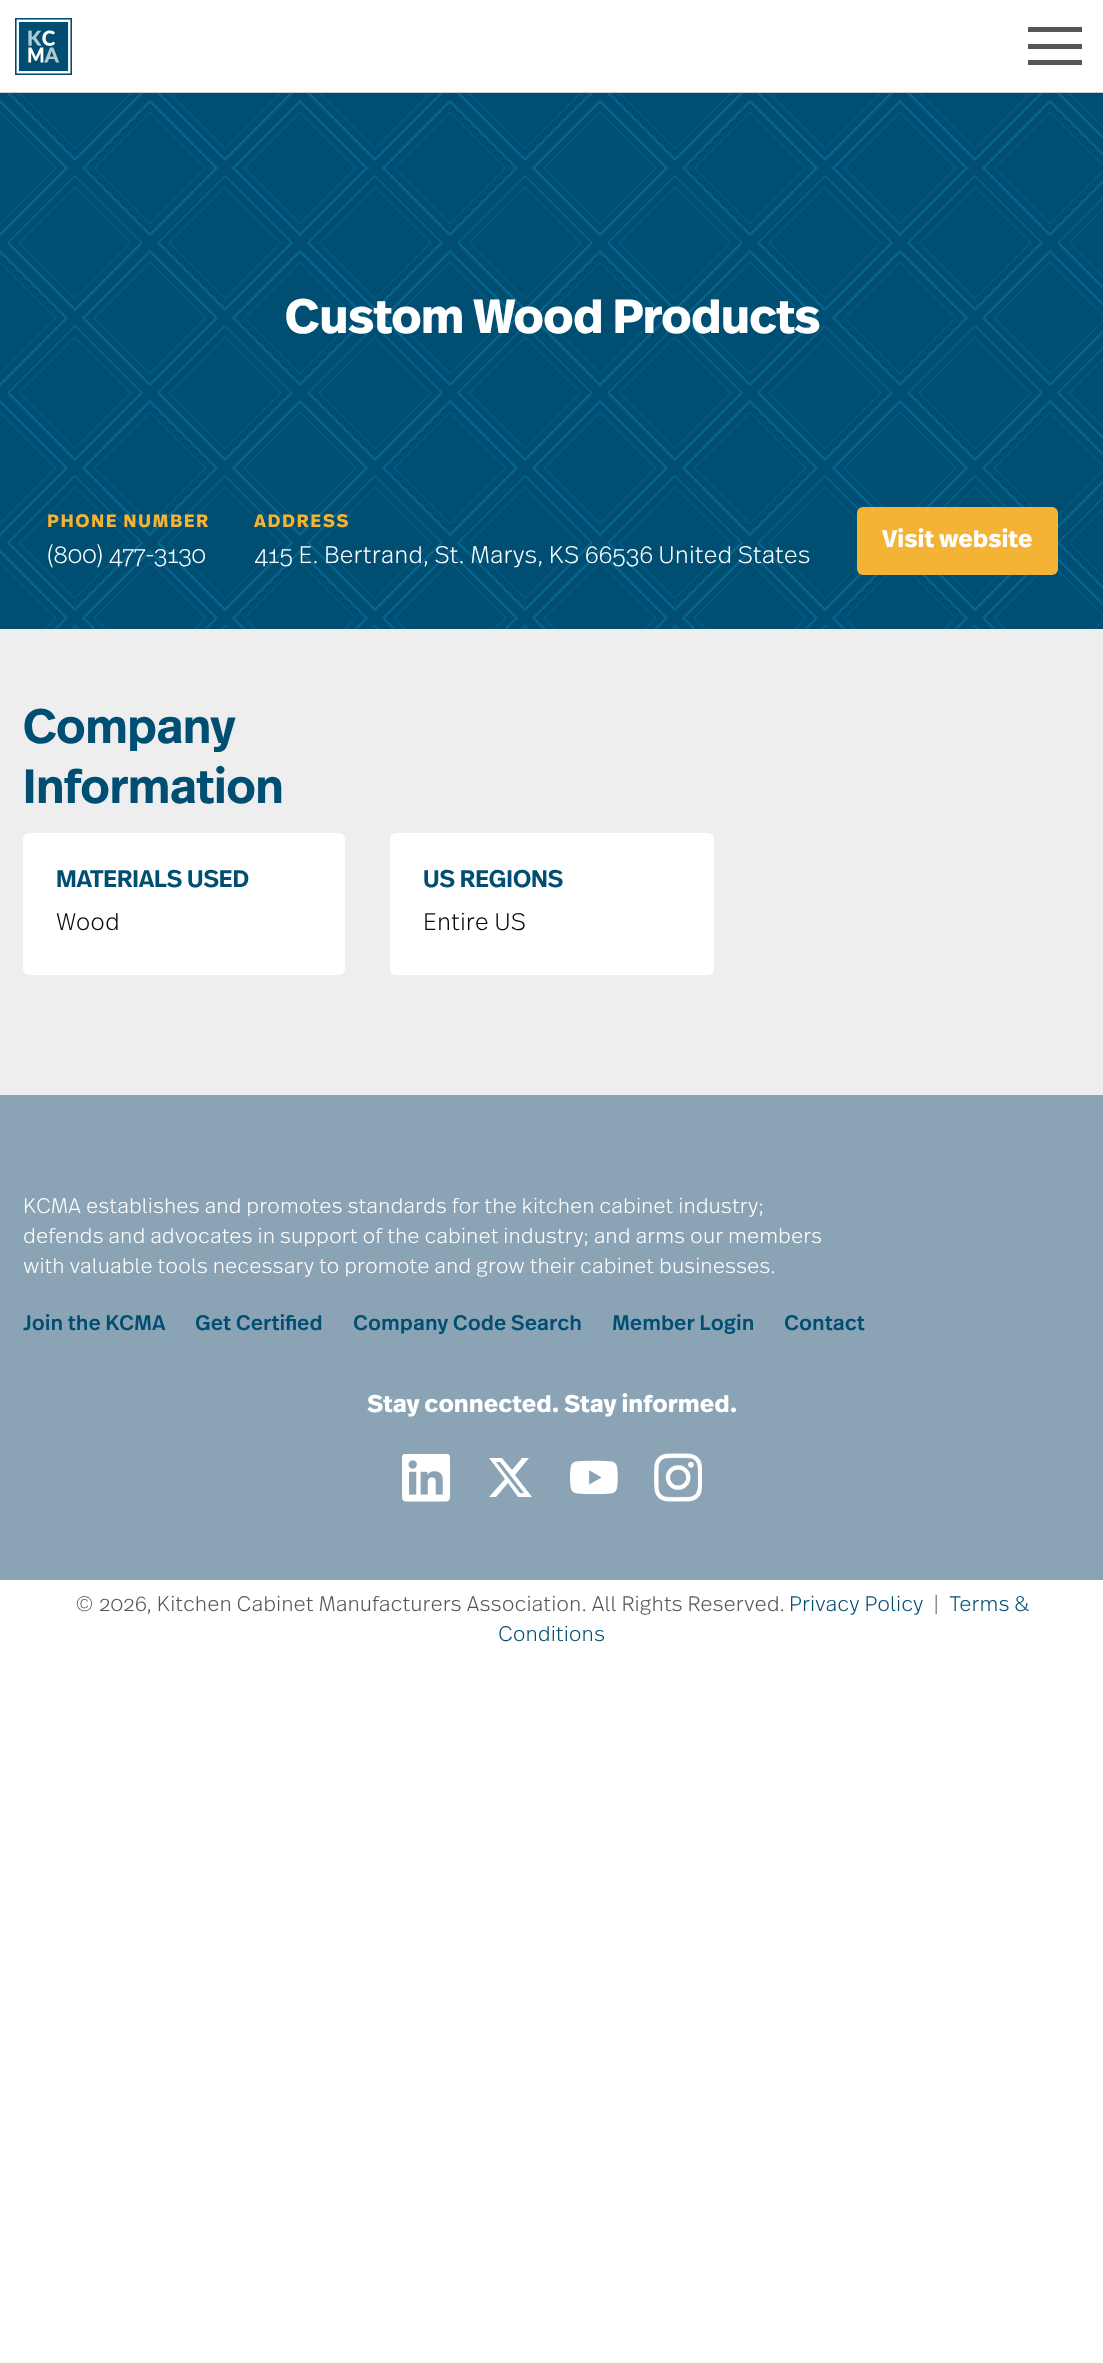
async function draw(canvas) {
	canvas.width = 1103;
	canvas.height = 2363;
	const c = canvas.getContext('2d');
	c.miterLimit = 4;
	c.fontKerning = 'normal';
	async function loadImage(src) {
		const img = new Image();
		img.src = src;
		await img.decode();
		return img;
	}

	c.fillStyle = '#fff';
	c.fillRect(0, 0, 1103, 2363);
	c.fillStyle = '#ccc';
	c.fillRect(0, 92, 1103, 1);
	c.drawImage(await loadImage('img1.png'), 15, 18, 57, 57);
	for (const [x, y, w, h, color] of [
		[1028, 27, 54, 5, '#555'],
		[1028, 44, 54, 5, '#555'],
		[1028, 60, 54, 5, '#555'],
		[0, 93, 1103, 536, '#004e72'],
	]) {
		c.fillStyle = color;
		c.fillRect(x, y, w, h);
	}
	c.drawImage(await loadImage('img2.png'), 0, 93, 1103, 536);
	c.font = 'bold 48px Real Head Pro';
	c.fillStyle = '#fff';
	c.fillText('Custom Wood Products', 285, 333);
	c.letterSpacing = '1.5px';
	c.font = 'bold 18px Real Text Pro';
	c.fillStyle = '#f5b335';
	c.fillText('PHONE NUMBER', 47, 527);
	c.letterSpacing = '0px';
	c.font = '300 24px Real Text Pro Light';
	c.fillStyle = '#fff';
	c.fillText('(800) 477-3130', 47, 563);
	c.letterSpacing = '1.5px';
	c.font = 'bold 18px Real Text Pro';
	c.fillStyle = '#f5b335';
	c.fillText('ADDRESS', 254, 527);
	c.letterSpacing = '0px';
	c.font = '300 24px Real Text Pro Light';
	c.fillStyle = '#fff';
	c.fillText('415 E. Bertrand, St. Marys, KS 66536 United States', 254, 563);
	c.fillStyle = '#f5b335';
	c.beginPath();
	c.roundRect(857, 507, 201, 68, 6);
	c.fill();
	c.font = 'bold 24px Real Text Pro';
	c.fillStyle = '#fff';
	c.fillText('Visit website', 882, 547);
	c.fillStyle = '#eee';
	c.fillRect(0, 629, 1103, 466);
	c.font = '600 48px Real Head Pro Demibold';
	c.fillStyle = '#004e72';
	c.fillText('Company', 23, 743);
	c.fillText('Information', 23, 803);
	c.fillStyle = '#fff';
	c.beginPath();
	c.roundRect(23, 833, 322, 142, 6);
	c.fill();
	c.font = '600 24px Real Head Pro Demibold';
	c.fillStyle = '#004e72';
	c.fillText('MATERIALS USED', 56, 887);
	c.font = '300 24px Real Text Pro Light';
	c.fillStyle = '#0a0a0a';
	c.fillText('Wood', 56, 930);
	c.fillStyle = '#fff';
	c.beginPath();
	c.roundRect(390, 833, 324, 142, 6);
	c.fill();
	c.font = '600 24px Real Head Pro Demibold';
	c.fillStyle = '#004e72';
	c.fillText('US REGIONS', 423, 887);
	c.font = '300 24px Real Text Pro Light';
	c.fillStyle = '#0a0a0a';
	c.fillText('Entire US', 423, 930);
	c.fillStyle = '#8aa3b5';
	c.fillRect(0, 1095, 1103, 485);
	c.font = '300 21px Real Text Pro Light';
	c.fillStyle = '#fff';
	for (const [text, x, y] of [
		['KCMA establishes and promotes standards for the kitchen cabinet industry;', 23, 1213],
		['defends and advocates in support of the cabinet industry; and arms our members', 23, 1243],
		['with valuable tools necessary to promote and grow their cabinet businesses.', 23, 1273],
	]) {
		c.fillText(text, x, y);
	}
	c.font = '500 21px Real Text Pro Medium';
	c.fillStyle = '#004e72';
	for (const [text, x, y] of [
		['Join the KCMA', 23, 1330],
		['Get Certified', 195, 1330],
		['Company Code Search', 353, 1330],
		['Member Login', 612, 1330],
		['Contact', 784, 1330],
	]) {
		c.fillText(text, x, y);
	}
	c.font = 'bold 24px Real Text Pro';
	c.fillStyle = '#fff';
	c.fillText('Stay connected. Stay informed.', 367, 1412);
	c.drawImage(await loadImage('img3.png'), 402, 1454, 48, 48);
	c.beginPath();
	c.moveTo(522, 1458);
	c.lineTo(529, 1458);
	c.lineTo(515, 1475);
	c.lineTo(532, 1497);
	c.lineTo(518, 1497);
	c.lineTo(508, 1483);
	c.lineTo(496, 1497);
	c.lineTo(489, 1497);
	c.lineTo(505, 1479);
	c.lineTo(489, 1458);
	c.lineTo(502, 1458);
	c.lineTo(512, 1470);
	c.closePath();
	c.moveTo(520, 1493);
	c.lineTo(524, 1493);
	c.lineTo(500, 1462);
	c.lineTo(496, 1462);
	c.closePath();
	c.fill();
	c.drawImage(await loadImage('img4.png'), 570, 1460, 48, 35);
	c.drawImage(await loadImage('img5.png'), 654, 1453, 48, 49);
	c.font = '300 21px Real Text Pro Light';
	c.fillStyle = '#555';
	c.fillText('© 2026, Kitchen Cabinet Manufacturers Association. All Rights Reserved.', 75, 1611);
	c.fillStyle = '#004e72';
	c.fillText('Privacy Policy', 789, 1611);
	c.fillStyle = '#555';
	c.fillText('|', 933, 1611);
	c.fillStyle = '#004e72';
	c.fillText('Terms &', 949, 1611);
	c.fillText('Conditions', 498, 1641);
}

draw(document.querySelector('canvas'));
